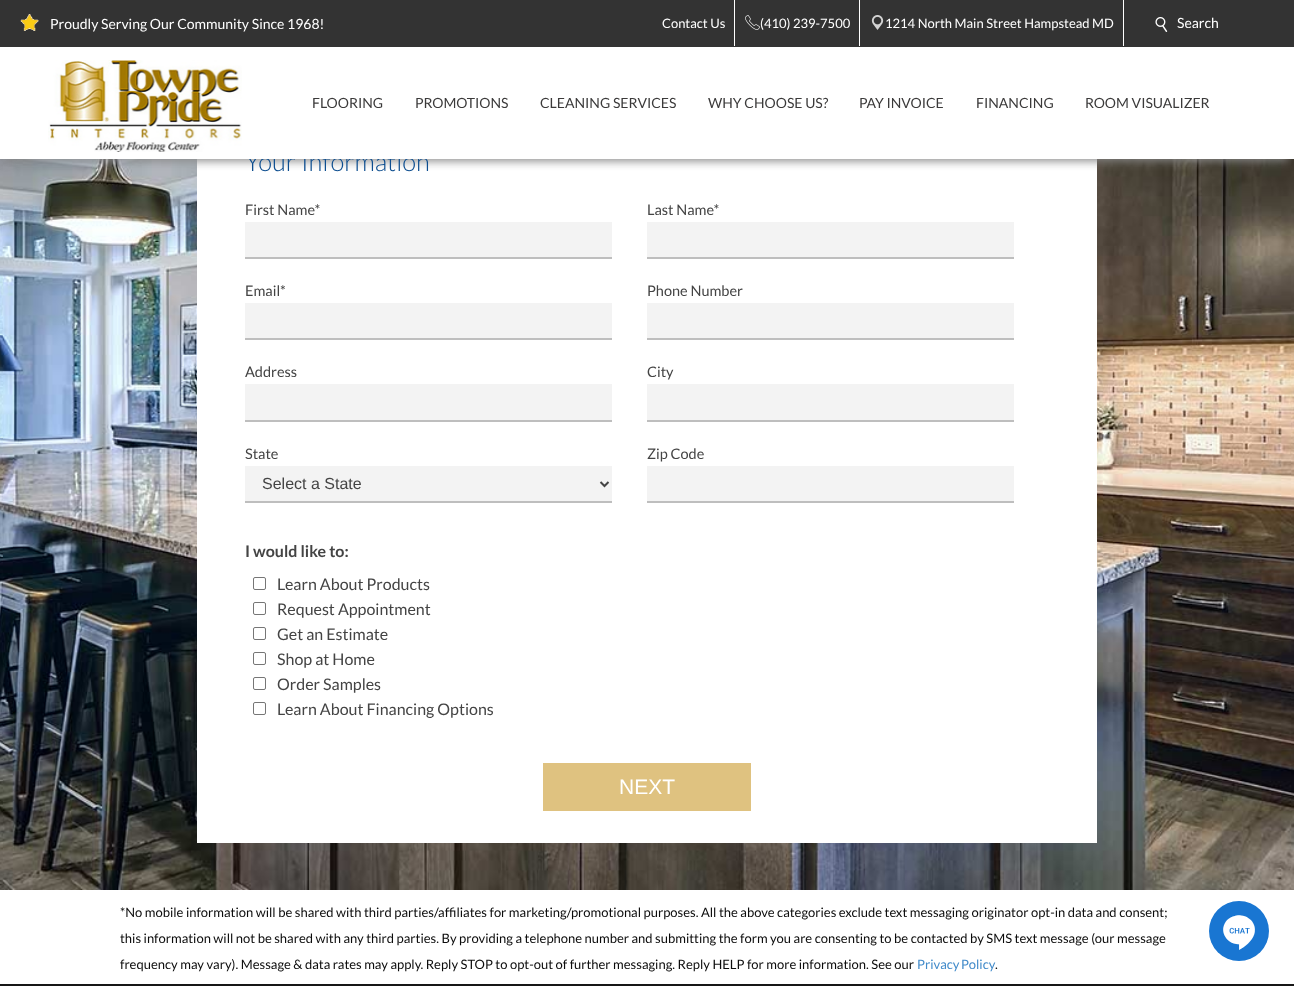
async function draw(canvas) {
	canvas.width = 1294;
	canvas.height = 986;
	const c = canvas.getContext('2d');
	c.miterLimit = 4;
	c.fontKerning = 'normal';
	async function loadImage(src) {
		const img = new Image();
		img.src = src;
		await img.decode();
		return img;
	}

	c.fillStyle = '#fff';
	c.fillRect(0, 0, 1294, 986);
	c.drawImage(await loadImage('img6.png'), 0, 159, 1294, 731);
	c.fillRect(197, 159, 900, 684);
	c.fillStyle = '#888';
	c.filter = 'blur(5px)';
	c.beginPath();
	c.rect(6, 60, 1282, 101);
	c.fill();
	c.filter = 'none';
	c.fillStyle = '#333';
	c.fillRect(0, 0, 1294, 47);
	c.drawImage(await loadImage('img1.png'), 20, 14, 19, 17);
	c.font = '14px Lato';
	c.fillStyle = '#fff';
	c.fillText('Proudly Serving Our Community Since 1968!', 50, 29);
	c.font = '13px Lato';
	c.fillText('Contact Us', 662, 28);
	c.fillRect(734, 0, 1, 46);
	c.drawImage(await loadImage('img2.png'), 745, 15, 15, 15);
	c.fillText('(410) 239-7500', 760, 28);
	c.fillRect(859, 0, 1, 46);
	c.drawImage(await loadImage('img3.png'), 871, 15, 13, 15);
	c.fillText('1214 North Main Street Hampstead MD', 885, 28);
	c.fillRect(1123, 0, 1, 46);
	c.drawImage(await loadImage('img4.png'), 1155, 17, 13, 15);
	c.font = '14px Lato';
	c.fillText('Search', 1177, 28);
	c.font = '300 25.5px Lato';
	c.fillStyle = '#0c4d8f';
	c.fillText('Your Information', 245, 171);
	c.fillStyle = '#fff';
	c.fillRect(0, 50, 1294, 109);
	c.drawImage(await loadImage('img5.png'), 48, 60, 194, 92);
	c.font = '14px Lato';
	c.fillStyle = '#3b3a3a';
	for (const [text, x, y] of [
		['FLOORING', 312, 108],
		['PROMOTIONS', 415, 108],
		['CLEANING SERVICES', 540, 108],
		['WHY CHOOSE US?', 708, 108],
		['PAY INVOICE', 859, 108],
		['FINANCING', 976, 108],
		['ROOM VISUALIZER', 1085, 108],
	]) {
		c.fillText(text, x, y);
	}
	c.font = '14.5px Lato';
	c.fillStyle = '#444';
	c.fillText('First Name*', 245, 215);
	c.fillStyle = '#f3f3f3';
	c.fillRect(245, 222, 367, 35);
	c.fillStyle = '#bebebe';
	c.fillRect(245, 257, 367, 2);
	c.fillStyle = '#444';
	c.fillText('Last Name*', 647, 215);
	c.fillStyle = '#f3f3f3';
	c.fillRect(647, 222, 367, 35);
	c.fillStyle = '#bebebe';
	c.fillRect(647, 257, 367, 2);
	c.fillStyle = '#444';
	c.fillText('Email*', 245, 296);
	c.fillStyle = '#f3f3f3';
	c.fillRect(245, 303, 367, 35);
	c.fillStyle = '#bebebe';
	c.fillRect(245, 338, 367, 2);
	c.fillStyle = '#444';
	c.fillText('Phone Number', 647, 296);
	c.fillStyle = '#f3f3f3';
	c.fillRect(647, 303, 367, 35);
	c.fillStyle = '#bebebe';
	c.fillRect(647, 338, 367, 2);
	c.fillStyle = '#444';
	c.fillText('Address', 245, 377);
	c.fillStyle = '#f3f3f3';
	c.fillRect(245, 384, 367, 36);
	c.fillStyle = '#bebebe';
	c.fillRect(245, 420, 367, 2);
	c.fillStyle = '#444';
	c.fillText('City', 647, 377);
	c.fillStyle = '#f3f3f3';
	c.fillRect(647, 384, 367, 36);
	c.fillStyle = '#bebebe';
	c.fillRect(647, 420, 367, 2);
	c.fillStyle = '#444';
	c.fillText('State', 245, 459);
	c.fillStyle = '#f3f3f3';
	c.fillRect(245, 466, 367, 35);
	c.fillStyle = '#bebebe';
	c.fillRect(245, 501, 367, 2);
	c.beginPath();
	c.moveTo(600.5, 482);
	c.lineTo(604.5, 486);
	c.lineTo(608.5, 482);
	c.strokeStyle = '#444';
	c.lineWidth = 2;
	c.stroke();
	c.font = '16px Liberation Sans';
	c.fillStyle = '#444';
	c.fillText('Select a State', 262, 489);
	c.font = '14.5px Lato';
	c.fillText('Zip Code', 647, 459);
	c.fillStyle = '#f3f3f3';
	c.fillRect(647, 466, 367, 35);
	c.fillStyle = '#bebebe';
	c.fillRect(647, 501, 367, 2);
	c.font = 'bold 16px Lato';
	c.fillStyle = '#444';
	c.fillText('I would like to:', 245, 557);
	c.beginPath();
	c.roundRect(253.5, 577.5, 12, 12, 1.5);
	c.strokeStyle = '#767676';
	c.lineWidth = 1;
	c.stroke();
	c.font = '16px Lato';
	c.fillText('Learn About Products', 277, 590);
	c.beginPath();
	c.roundRect(253.5, 602.5, 12, 12, 1.5);
	c.stroke();
	c.fillText('Request Appointment', 277, 615);
	c.beginPath();
	c.roundRect(253.5, 627.5, 12, 12, 1.5);
	c.stroke();
	c.fillText('Get an Estimate', 277, 640);
	c.beginPath();
	c.roundRect(253.5, 652.5, 12, 12, 1.5);
	c.stroke();
	c.fillText('Shop at Home', 277, 665);
	c.beginPath();
	c.roundRect(253.5, 677.5, 12, 12, 1.5);
	c.stroke();
	c.fillText('Order Samples', 277, 690);
	c.beginPath();
	c.roundRect(253.5, 702.5, 12, 12, 1.5);
	c.stroke();
	c.fillText('Learn About Financing Options', 277, 715);
	c.fillStyle = '#dfc280';
	c.fillRect(543, 763, 208, 48);
	c.font = '21px Liberation Sans';
	c.fillStyle = '#fff';
	c.fillText('NEXT', 619, 794);
	c.font = '13px Lato';
	c.fillStyle = '#0c0c0c';
	for (const [text, x, y] of [
		['*No mobile information will be shared with third parties/affiliates for marketing/promotional purposes. All the above categories exclude text messaging originator opt-in data and consent;', 120, 917],
		['this information will not be shared with any third parties. By providing a telephone number and submitting the form you are consenting to be contacted by SMS text message (our message', 120, 943],
		['frequency may vary). Message & data rates may apply. Reply STOP to opt-out of further messaging. Reply HELP for more information. See our', 120, 969],
	]) {
		c.fillText(text, x, y);
	}
	c.wordSpacing = '-1px';
	c.fillStyle = '#428bca';
	c.fillText('Privacy Policy', 917, 969);
	c.wordSpacing = '0px';
	c.fillStyle = '#0c0c0c';
	c.fillText('.', 995, 969);
	c.fillStyle = '#171717';
	c.fillRect(0, 984, 1294, 2);
	c.drawImage(await loadImage('img7.png'), 1209, 901, 60, 60);
}

draw(document.querySelector('canvas'));
